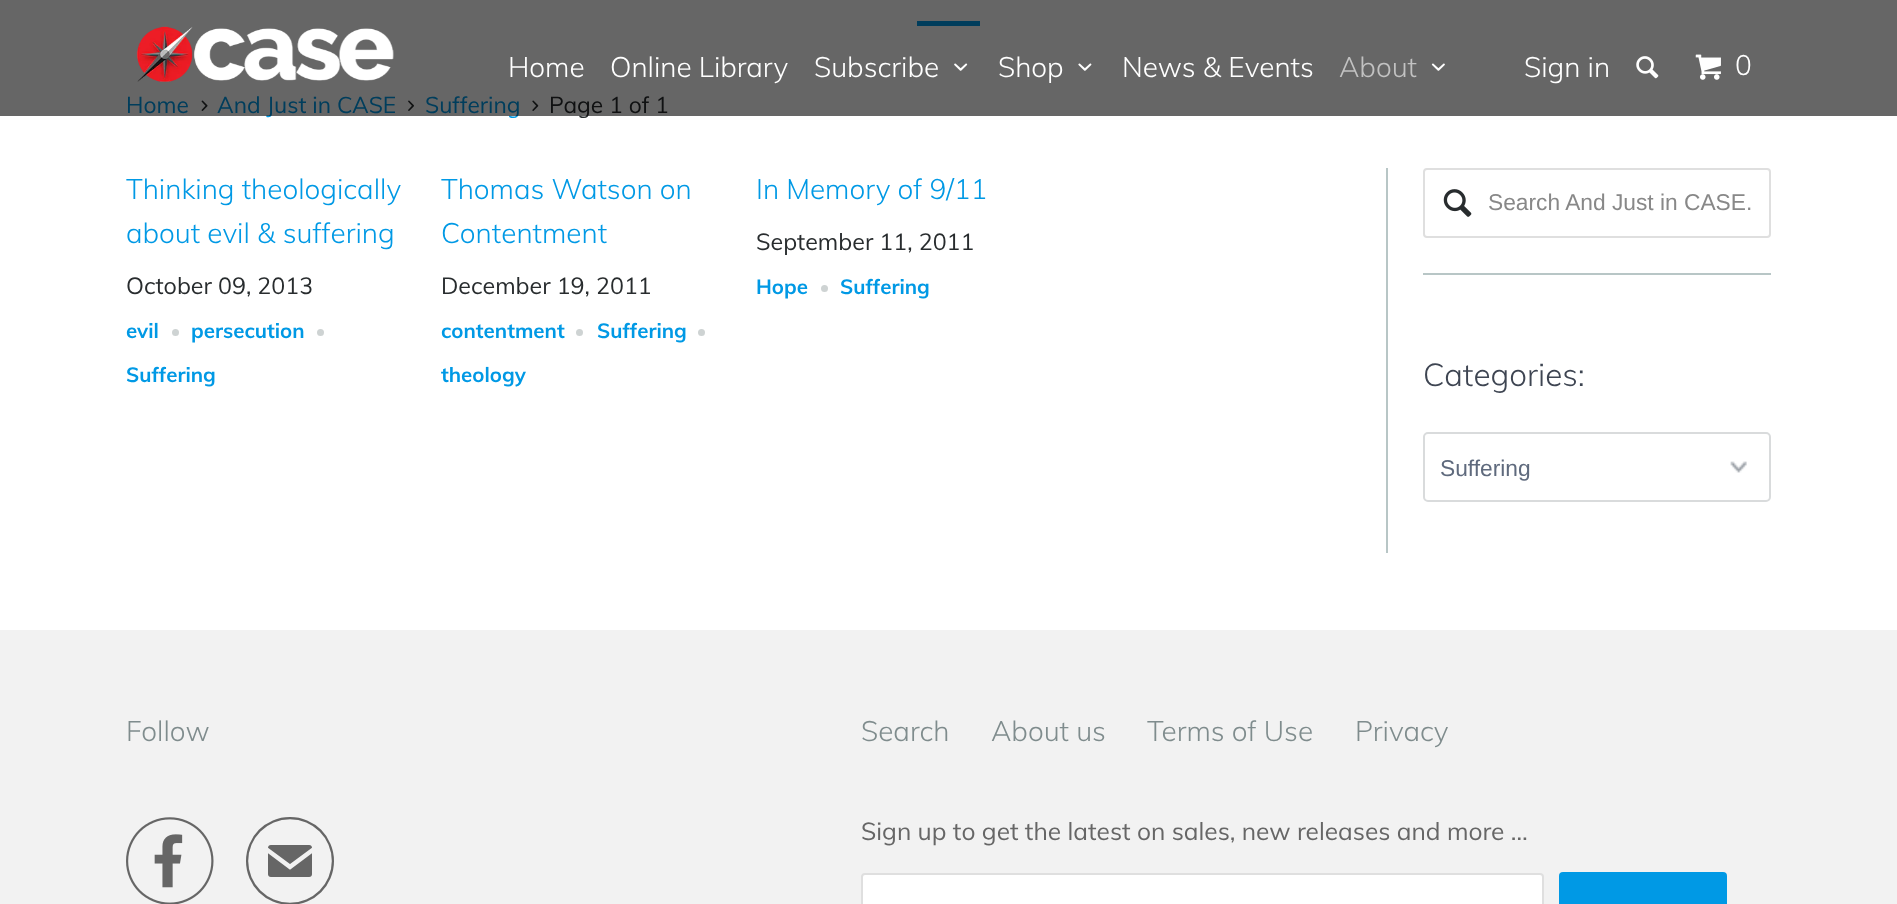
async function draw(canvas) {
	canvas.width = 1897;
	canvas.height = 904;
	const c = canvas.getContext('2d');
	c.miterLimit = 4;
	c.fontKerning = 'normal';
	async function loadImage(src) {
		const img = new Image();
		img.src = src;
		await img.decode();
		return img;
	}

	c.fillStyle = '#fff';
	c.fillRect(0, 0, 1897, 904);
	c.fillStyle = '#0099e5';
	c.fillRect(917, 21, 63, 5);
	c.font = '22.75px Muli';
	c.fillText('Home', 126, 113);
	c.drawImage(await loadImage('img7.png'), 201, 100, 7, 11);
	c.fillText('And Just in CASE', 217, 113);
	c.drawImage(await loadImage('img8.png'), 408, 100, 6, 11);
	c.fillText('Suffering', 425, 113);
	c.drawImage(await loadImage('img9.png'), 532, 100, 7, 11);
	c.fillStyle = '#282c2e';
	c.fillText('Page 1 of 1', 549, 113);
	c.fillStyle = '#00000099';
	c.fillRect(0, 0, 1897, 116);
	c.drawImage(await loadImage('img1.png'), 136, 26, 258, 56);
	c.font = '300 28px Muli';
	c.fillStyle = '#fff';
	for (const [text, x, y] of [
		['Home', 508, 77],
		['Online Library', 610, 77],
		['Subscribe', 814, 77],
	]) {
		c.fillText(text, x, y);
	}
	c.drawImage(await loadImage('img2.png'), 954, 63, 14, 8);
	c.fillText('Shop', 998, 77);
	c.drawImage(await loadImage('img3.png'), 1078, 63, 14, 8);
	c.fillText('News & Events', 1122, 77);
	c.fillStyle = '#c2c2c2';
	c.fillText('About', 1339, 77);
	c.drawImage(await loadImage('img4.png'), 1431, 63, 14, 8);
	c.fillStyle = '#fff';
	c.fillText('Sign in', 1524, 77);
	c.drawImage(await loadImage('img5.png'), 1636, 56, 23, 23);
	c.drawImage(await loadImage('img6.png'), 1695, 54, 26, 26);
	c.fillText('0', 1735, 75);
	c.fillStyle = '#0099e5';
	c.fillText('Thinking theologically', 126, 199);
	c.fillText('about evil & suffering', 126, 243);
	c.font = '23.25px Muli';
	c.fillStyle = '#282c2e';
	c.fillText('October 09, 2013', 126, 294);
	c.font = 'bold 20.5px Muli';
	c.fillStyle = '#0099e5';
	c.fillText('evil', 126, 338);
	c.fillStyle = '#ced3d3';
	c.beginPath();
	c.arc(175.5, 332.5, 3.5, 0, 2 * Math.PI);
	c.fill();
	c.fillStyle = '#0099e5';
	c.fillText('persecution', 191, 338);
	c.fillStyle = '#ced3d3';
	c.beginPath();
	c.arc(320.5, 332.5, 3.5, 0, 2 * Math.PI);
	c.fill();
	c.fillStyle = '#0099e5';
	c.fillText('Suffering', 126, 382);
	c.font = '300 28px Muli';
	c.fillText('Thomas Watson on', 441, 199);
	c.fillText('Contentment', 441, 243);
	c.font = '23.25px Muli';
	c.fillStyle = '#282c2e';
	c.fillText('December 19, 2011', 441, 294);
	c.font = 'bold 20.5px Muli';
	c.fillStyle = '#0099e5';
	c.fillText('contentment', 441, 338);
	c.fillStyle = '#ced3d3';
	c.beginPath();
	c.arc(579.5, 332.5, 3.5, 0, 2 * Math.PI);
	c.fill();
	c.fillStyle = '#0099e5';
	c.fillText('Suffering', 597, 338);
	c.fillStyle = '#ced3d3';
	c.beginPath();
	c.arc(701.5, 332.5, 3.5, 0, 2 * Math.PI);
	c.fill();
	c.fillStyle = '#0099e5';
	c.fillText('theology', 441, 382);
	c.font = '300 28px Muli';
	c.fillText('In Memory of 9/11', 756, 199);
	c.font = '23.25px Muli';
	c.fillStyle = '#282c2e';
	c.fillText('September 11, 2011', 756, 250);
	c.font = 'bold 20.5px Muli';
	c.fillStyle = '#0099e5';
	c.fillText('Hope', 756, 294);
	c.fillStyle = '#ced3d3';
	c.beginPath();
	c.arc(824.5, 288.5, 3.5, 0, 2 * Math.PI);
	c.fill();
	c.fillStyle = '#0099e5';
	c.fillText('Suffering', 840, 294);
	c.fillStyle = '#b8c6c6';
	c.fillRect(1386, 168, 2, 385);
	c.beginPath();
	c.roundRect(1424, 169, 346, 68, 3);
	c.strokeStyle = '#dfdfdf';
	c.lineWidth = 2;
	c.stroke();
	c.drawImage(await loadImage('img10.png'), 1443, 189, 29, 28);
	c.font = '22.75px Liberation Sans';
	c.fillStyle = '#888';
	c.fillText('Search And Just in CASE.', 1488, 210);
	c.fillStyle = '#b8c6c6';
	c.fillRect(1423, 273, 348, 2);
	c.font = '300 31.5px Muli';
	c.fillStyle = '#3e4552';
	c.fillText('Categories:', 1423, 386);
	c.drawImage(await loadImage('img11.png'), 1730, 461, 17, 12);
	c.beginPath();
	c.roundRect(1424, 433, 346, 68, 4);
	c.strokeStyle = '#d9dbdc';
	c.stroke();
	c.font = '22.75px Liberation Sans';
	c.fillStyle = '#5f6a7d';
	c.fillText('Suffering', 1440, 476);
	c.fillStyle = '#f2f2f2';
	c.fillRect(0, 630, 1897, 274);
	c.font = '300 28px Muli';
	c.fillStyle = '#7f8c8d';
	c.fillText('Follow', 126, 741);
	c.drawImage(await loadImage('img12.png'), 126, 817, 88, 87);
	c.font = '88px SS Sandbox';
	c.fillStyle = '#666';
	c.fillText('✉', 246, 905);
	c.font = '300 28px Muli';
	c.fillStyle = '#7f8c8d';
	for (const [text, x, y] of [
		['Search', 861, 741],
		['About us', 991, 741],
		['Terms of Use', 1147, 741],
		['Privacy', 1355, 741],
	]) {
		c.fillText(text, x, y);
	}
	c.font = '24.5px Muli';
	c.fillStyle = '#666';
	c.fillText('Sign up to get the latest on sales, new releases and more …', 861, 840);
	c.fillStyle = '#fff';
	c.beginPath();
	c.roundRect(862, 874, 681, 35, 3);
	c.fill();
	c.strokeStyle = '#dfdfdf';
	c.stroke();
	c.fillStyle = '#0099e5';
	c.beginPath();
	c.roundRect(1559, 872, 168, 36, 4);
	c.fill();
}

draw(document.querySelector('canvas'));
